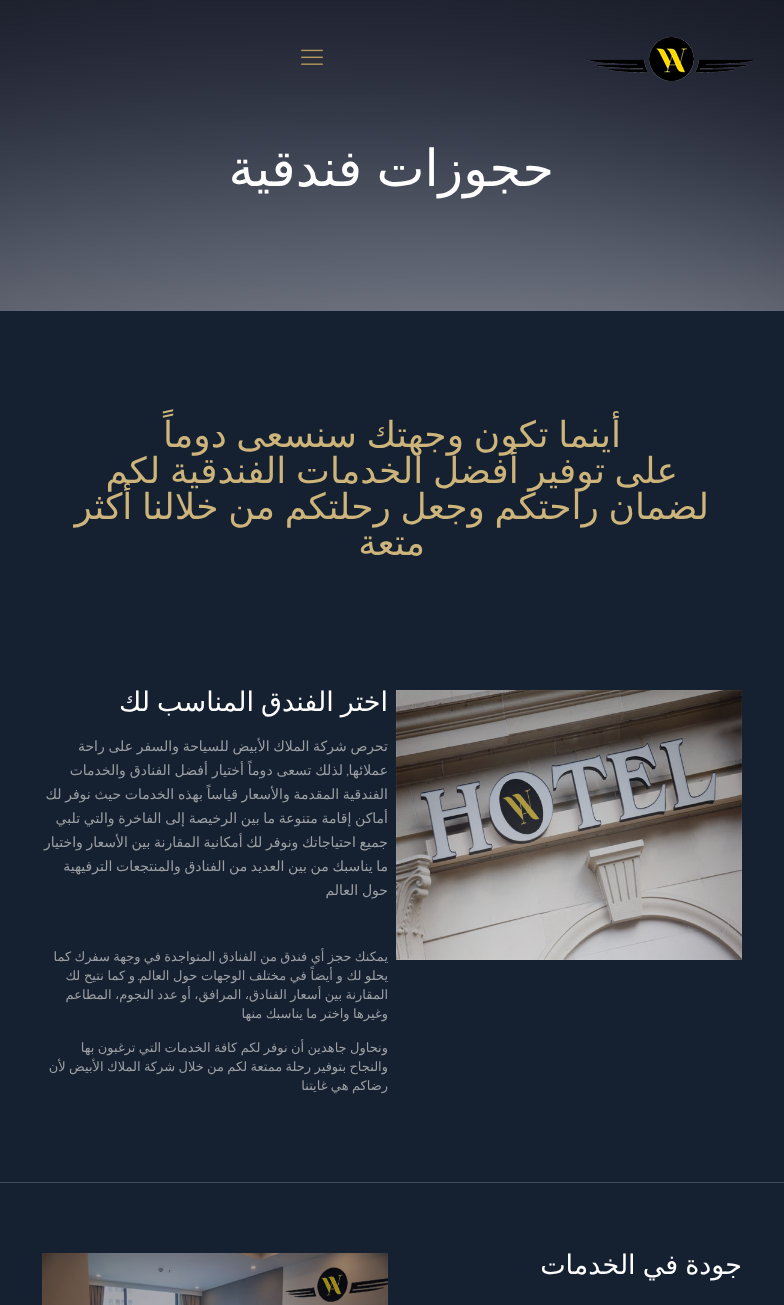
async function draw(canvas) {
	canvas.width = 784;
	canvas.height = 1305;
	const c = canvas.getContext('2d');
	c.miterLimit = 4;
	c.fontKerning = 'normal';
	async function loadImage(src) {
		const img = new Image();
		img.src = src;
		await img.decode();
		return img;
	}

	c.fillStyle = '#152030';
	c.fillRect(0, 0, 784, 1305);
	c.drawImage(await loadImage('img1.png'), 0, 0, 784, 311);
	c.drawImage(await loadImage('img2.png'), 588, 37, 167, 44);
	c.drawImage(await loadImage('img3.png'), 301, 49, 22, 16);
	c.wordSpacing = '-2px';
	c.direction = 'rtl';
	c.font = '51px DejaVu Sans';
	c.fillStyle = '#fff';
	c.fillText('حجوزات فندقية', 554, 186);
	c.wordSpacing = '-1.75px';
	c.font = '36px DejaVu Sans';
	c.fillStyle = '#ccb47a';
	for (const [text, x, y] of [
		['أينما تكون وجهتك سنسعى دوماً', 621, 447],
		['على توفير أفضل الخدمات الفندقية لكم', 678, 483],
		['لضمان راحتكم وجعل رحلتكم من خلالنا أكثر', 709, 519],
	]) {
		c.fillText(text, x, y);
	}
	c.wordSpacing = '0px';
	c.fillText('متعة', 425, 555);
	c.fillStyle = '#3f4c5f';
	c.fillRect(0, 1182, 784, 1);
	c.drawImage(await loadImage('img4.png'), 396, 690, 346, 270);
	c.wordSpacing = '-1.5px';
	c.font = '27px DejaVu Sans';
	c.fillStyle = '#fff';
	c.fillText('اختر الفندق المناسب لك', 388, 711);
	c.wordSpacing = '-0.75px';
	c.font = '14px DejaVu Sans';
	c.fillStyle = '#9b9fa4';
	c.fillText('تحرص شركة الملاك الأبيض للسياحة والسفر على راحة', 388, 751);
	c.wordSpacing = '0px';
	c.fillText('عملائها', 388, 775);
	c.font = '14px Karma';
	c.fillText(',', 349, 775);
	c.wordSpacing = '-0.5px';
	c.font = '14px DejaVu Sans';
	c.fillText('لذلك تسعى دوماً أختيار أفضل الفنادق والخدمات', 343, 775);
	c.wordSpacing = '-0.75px';
	for (const [text, x, y] of [
		['الفندقية المقدمة والأسعار قياساً بهذه الخدمات حيث نوفر لك', 388, 799],
		['أماكن إقامة متنوعة ما بين الرخيصة إلى الفاخرة والتي تلبي', 388, 823],
		['جميع احتياجاتك ونوفر لك أمكانية المقارنة بين الأسعار واختيار', 388, 847],
		['ما يناسبك من بين العديد من الفنادق والمنتجعات الترفيهية', 388, 871],
		['حول العالم', 388, 895],
	]) {
		c.fillText(text, x, y);
	}
	c.font = '13px DejaVu Sans';
	c.fillText('يمكنك حجز أي فندق من الفنادق المتواجدة في وجهة سفرك كما', 388, 961);
	c.wordSpacing = '-0.5px';
	c.fillText('يحلو لك و أيضاً في مختلف الوجهات حول العالم', 388, 980);
	c.wordSpacing = '0px';
	c.font = '13px Karma';
	c.fillText('.', 140, 980);
	c.wordSpacing = '-0.5px';
	c.font = '13px DejaVu Sans';
	c.fillText('و كما نتيح لك', 135, 980);
	c.wordSpacing = '-0.75px';
	for (const [text, x, y] of [
		['المقارنة بين أسعار الفنادق، المرافق، أو عدد النجوم، المطاعم', 388, 999],
		['وغيرها واختر ما يناسبك منها', 388, 1018],
		['ونحاول جاهدين أن نوفر لكم كافة الخدمات التي ترغبون بها', 388, 1052],
		['والنجاح بتوفير رحلة ممتعة لكم من خلال شركة الملاك الأبيض لأن', 388, 1071],
		['رضاكم هي غايتنا', 388, 1090],
	]) {
		c.fillText(text, x, y);
	}
	c.wordSpacing = '-1.5px';
	c.font = '27px DejaVu Sans';
	c.fillStyle = '#fff';
	c.fillText('جودة في الخدمات', 742, 1274);
	c.drawImage(await loadImage('img5.png'), 42, 1253, 346, 52);
}

draw(document.querySelector('canvas'));
